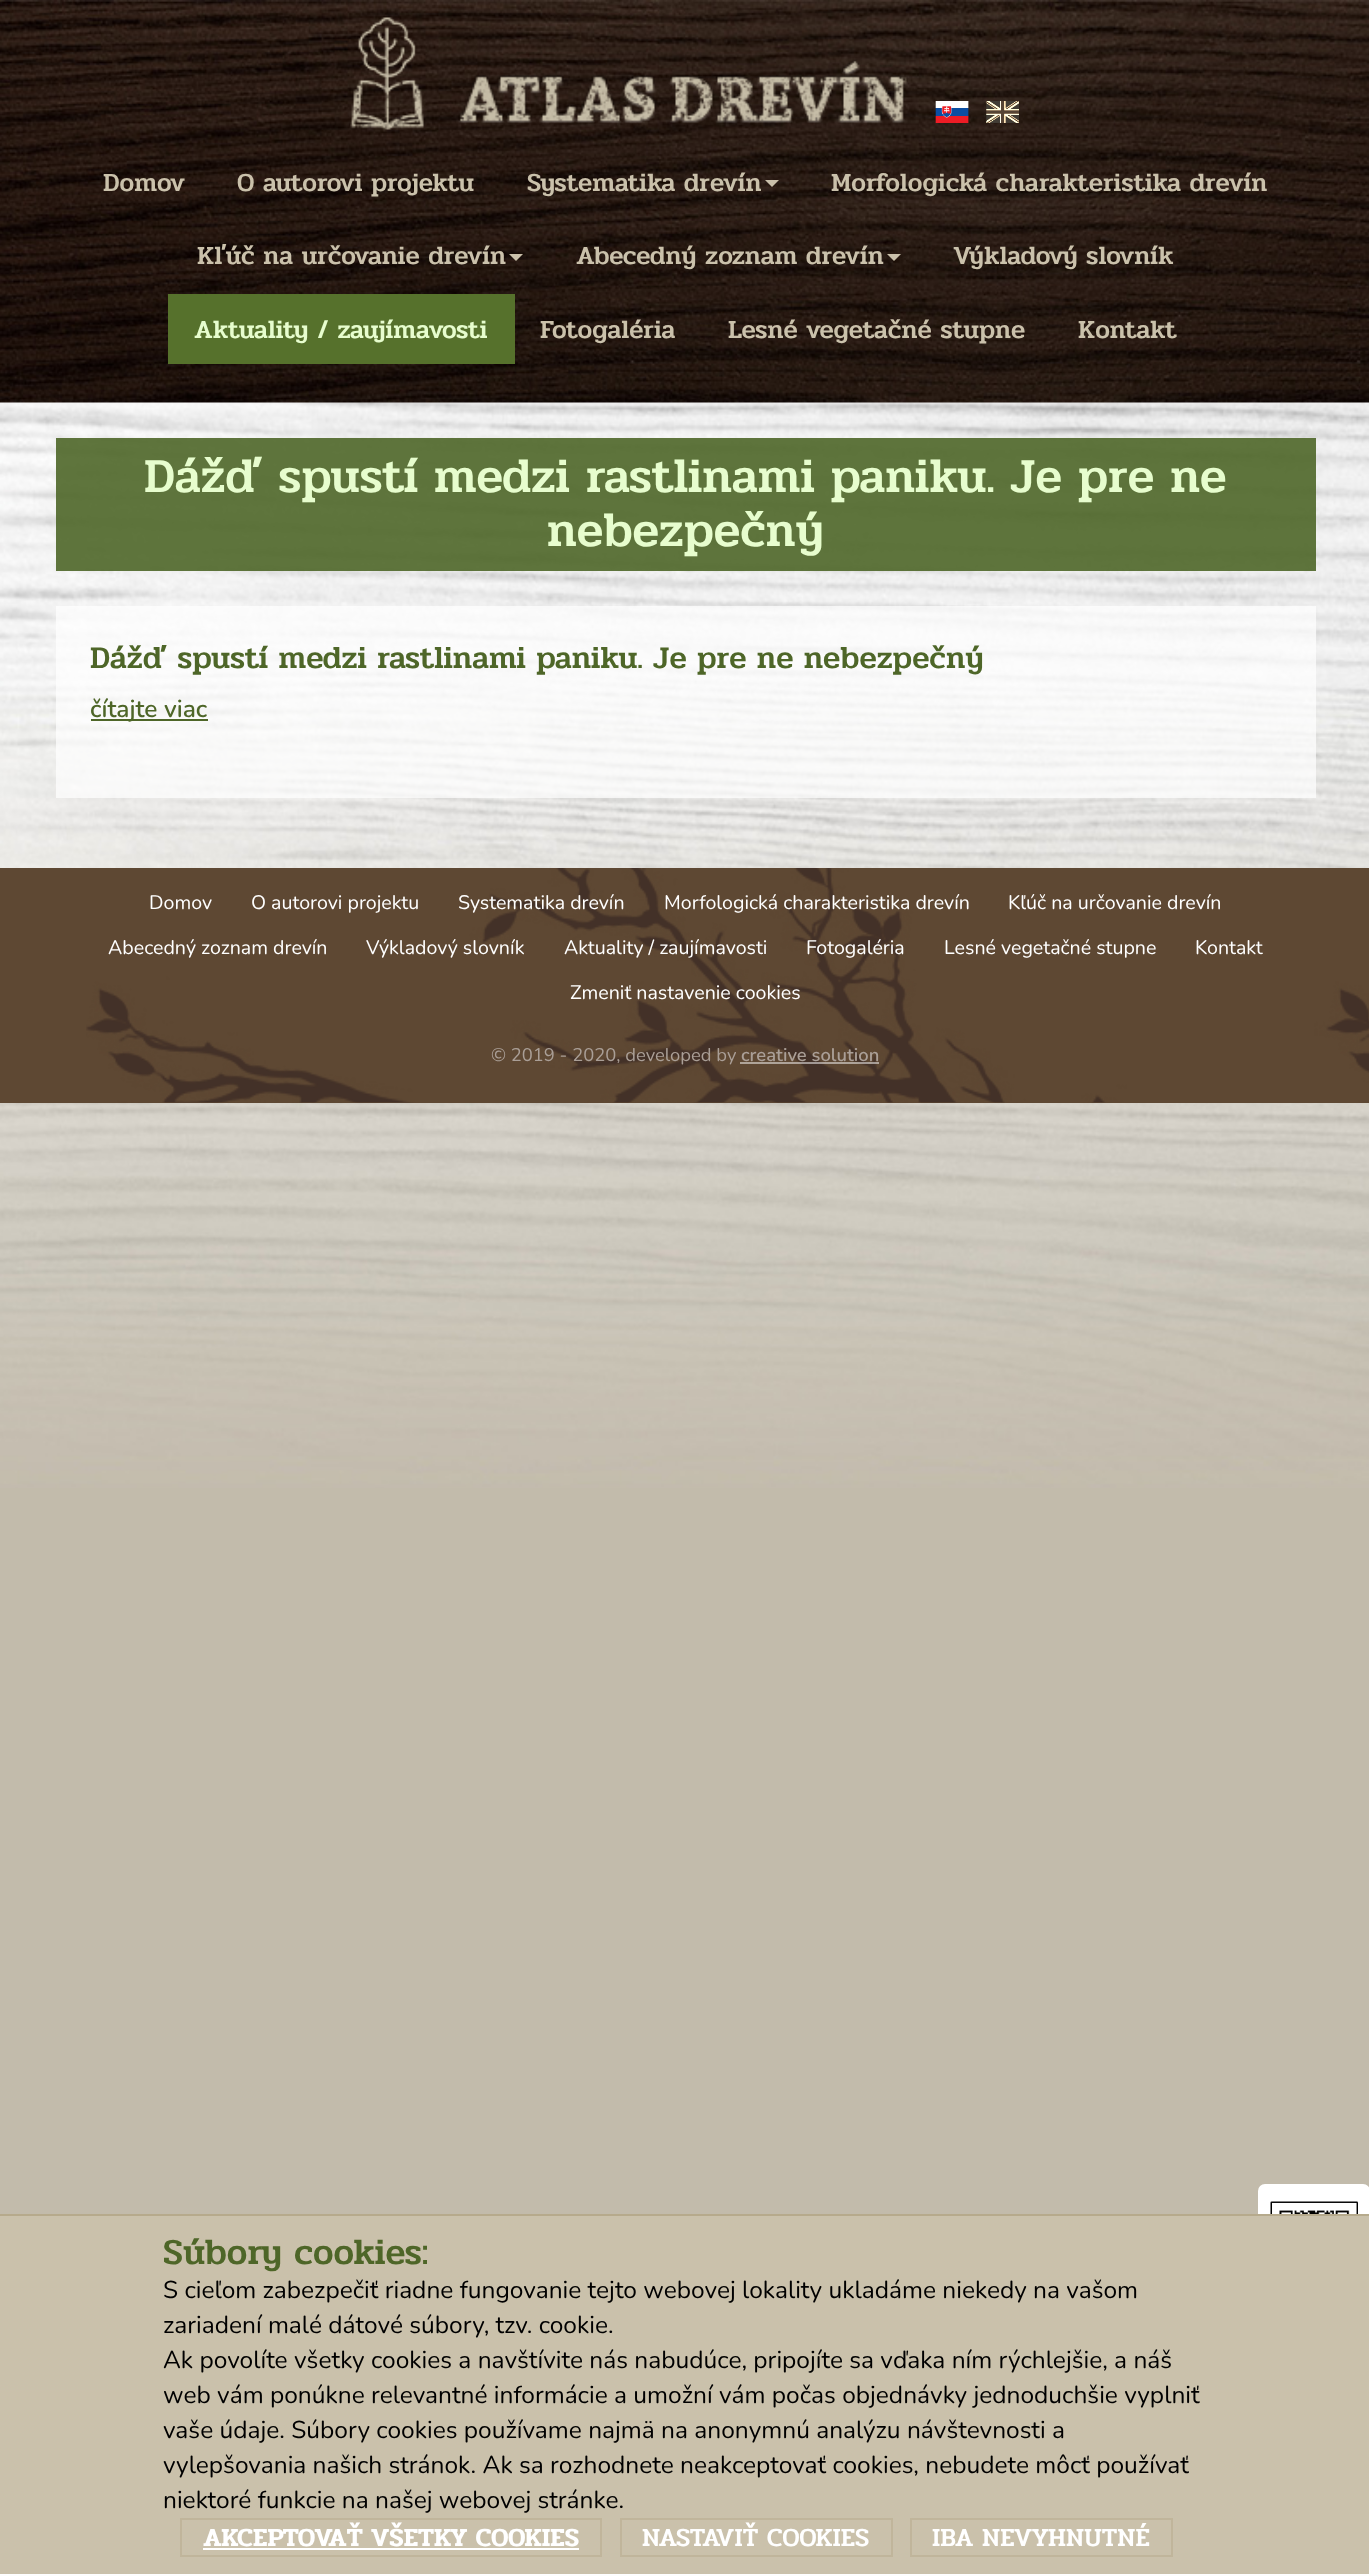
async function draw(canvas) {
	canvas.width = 1369;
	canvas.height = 2574;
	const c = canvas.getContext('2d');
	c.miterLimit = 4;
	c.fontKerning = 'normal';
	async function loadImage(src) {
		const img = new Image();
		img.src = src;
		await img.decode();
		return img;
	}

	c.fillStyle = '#c2bbab';
	c.fillRect(0, 0, 1369, 2574);
	c.drawImage(await loadImage('img1.png'), 0, 402, 1369, 1086);
	c.drawImage(await loadImage('img2.png'), 0, 0, 1369, 403);
	c.drawImage(await loadImage('img3.png'), 350, 17, 558, 113);
	c.drawImage(await loadImage('img4.png'), 935, 101, 34, 22);
	c.drawImage(await loadImage('img5.png'), 986, 101, 33, 22);
	c.font = '500 26.25px Pridi';
	c.fillStyle = '#cac1ab';
	for (const [text, x, y] of [
		['Domov', 103, 191],
		['O autorovi projektu', 237, 191],
		['Systematika drevín', 527, 191],
	]) {
		c.fillText(text, x, y);
	}
	c.beginPath();
	c.moveTo(765, 180);
	c.lineTo(779, 180);
	c.lineTo(772, 187);
	c.closePath();
	c.fill();
	c.fillText('Morfologická charakteristika drevín', 831, 191);
	c.fillText('Kľúč na určovanie drevín', 197, 264);
	c.beginPath();
	c.moveTo(509, 254);
	c.lineTo(523, 254);
	c.lineTo(516, 261);
	c.closePath();
	c.fill();
	c.fillText('Abecedný zoznam drevín', 576, 264);
	c.beginPath();
	c.moveTo(887, 254);
	c.lineTo(901, 254);
	c.lineTo(894, 261);
	c.closePath();
	c.fill();
	c.fillText('Výkladový slovník', 953, 264);
	c.fillStyle = '#56712c';
	c.fillRect(168, 294, 347, 70);
	c.fillStyle = '#e7fdce';
	c.fillText('Aktuality / zaujímavosti', 194, 338);
	c.fillStyle = '#cac1ab';
	for (const [text, x, y] of [
		['Fotogaléria', 540, 338],
		['Lesné vegetačné stupne', 728, 338],
		['Kontakt', 1078, 338],
	]) {
		c.fillText(text, x, y);
	}
	c.fillStyle = '#4e6628e6';
	c.fillRect(56, 438, 1260, 133);
	c.font = '500 49px Pridi';
	c.fillStyle = '#e7fdce';
	c.fillText('Dážď spustí medzi rastlinami paniku. Je pre ne', 144, 492);
	c.fillText('nebezpečný', 547, 546);
	c.fillStyle = '#ffffffb3';
	c.fillRect(56, 606, 1260, 192);
	c.font = '500 31.85px Pridi';
	c.fillStyle = '#4e6628';
	c.fillText('Dážď spustí medzi rastlinami paniku. Je pre ne nebezpečný', 90, 668);
	c.fillRect(91, 719, 117, 2);
	c.font = '600 24.5px Nunito';
	c.fillText('čítajte viac', 90, 717);
	c.fillStyle = '#5e4833';
	c.fillRect(0, 868, 1369, 235);
	c.drawImage(await loadImage('img6.png'), 86, 868, 1283, 235);
	c.font = '19.6px Nunito';
	c.fillStyle = '#fff';
	for (const [text, x, y] of [
		['Domov', 149, 909],
		['O autorovi projektu', 251, 909],
		['Systematika drevín', 458, 909],
		['Morfologická charakteristika drevín', 664, 909],
		['Kľúč na určovanie drevín', 1008, 909],
		['Abecedný zoznam drevín', 108, 954],
		['Výkladový slovník', 366, 954],
		['Aktuality / zaujímavosti', 564, 954],
		['Fotogaléria', 806, 954],
		['Lesné vegetačné stupne', 944, 954],
		['Kontakt', 1195, 954],
		['Zmeniť nastavenie cookies', 570, 999],
	]) {
		c.fillText(text, x, y);
	}
	c.font = '18.4px Nunito';
	c.fillStyle = '#aa9f97';
	c.fillText('© 2019 - 2020, developed by', 491, 1061);
	c.font = '600 18.4px Nunito';
	c.fillText('creative solution', 741, 1061);
	c.fillStyle = '#ffffff80';
	c.fillRect(740, 1062, 139, 2);
	c.fillStyle = '#fff';
	c.beginPath();
	c.roundRect(1258, 2184, 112, 133, 7);
	c.fill();
	c.fillStyle = '#cac1ab';
	c.fillRect(0, 2216, 1369, 358);
	c.fillStyle = '#b6aa8c';
	c.fillRect(0, 2214, 1369, 2);
	c.font = '500 36.75px Pridi';
	c.fillStyle = '#4e6628';
	c.fillText('Súbory cookies:', 163, 2264);
	c.font = '24.5px Nunito';
	c.fillStyle = '#000';
	for (const [text, x, y] of [
		['S cieľom zabezpečiť riadne fungovanie tejto webovej lokality ukladáme niekedy na vašom', 163, 2298],
		['zariadení malé dátové súbory, tzv. cookie.', 163, 2333],
		['Ak povolíte všetky cookies a navštívite nás nabudúce, pripojíte sa vďaka ním rýchlejšie, a náš', 163, 2368],
		['web vám ponúkne relevantné informácie a umožní vám počas objednávky jednoduchšie vyplniť', 163, 2403],
		['vaše údaje. Súbory cookies používame najmä na anonymnú analýzu návštevnosti a', 163, 2438],
		['vylepšovania našich stránok. Ak sa rozhodnete neakceptovať cookies, nebudete môcť používať', 163, 2473],
		['niektoré funkcie na našej webovej stránke.', 163, 2508],
	]) {
		c.fillText(text, x, y);
	}
	c.strokeStyle = '#c0b59b';
	c.lineWidth = 2;
	c.strokeRect(181, 2519, 420, 37);
	c.font = '600 26.25px Pridi';
	c.fillStyle = '#fff';
	c.fillText('AKCEPTOVAŤ VŠETKY COOKIES', 203, 2546);
	c.fillRect(203, 2548, 376, 2);
	c.strokeRect(621, 2519, 271, 37);
	c.font = '500 26.25px Pridi';
	c.fillText('NASTAVIŤ COOKIES', 642, 2546);
	c.strokeRect(911, 2519, 261, 37);
	c.fillText('IBA NEVYHNUTNÉ', 932, 2546);
	c.drawImage(await loadImage('img7.png'), 1270, 2201, 88, 13);
}

draw(document.querySelector('canvas'));
